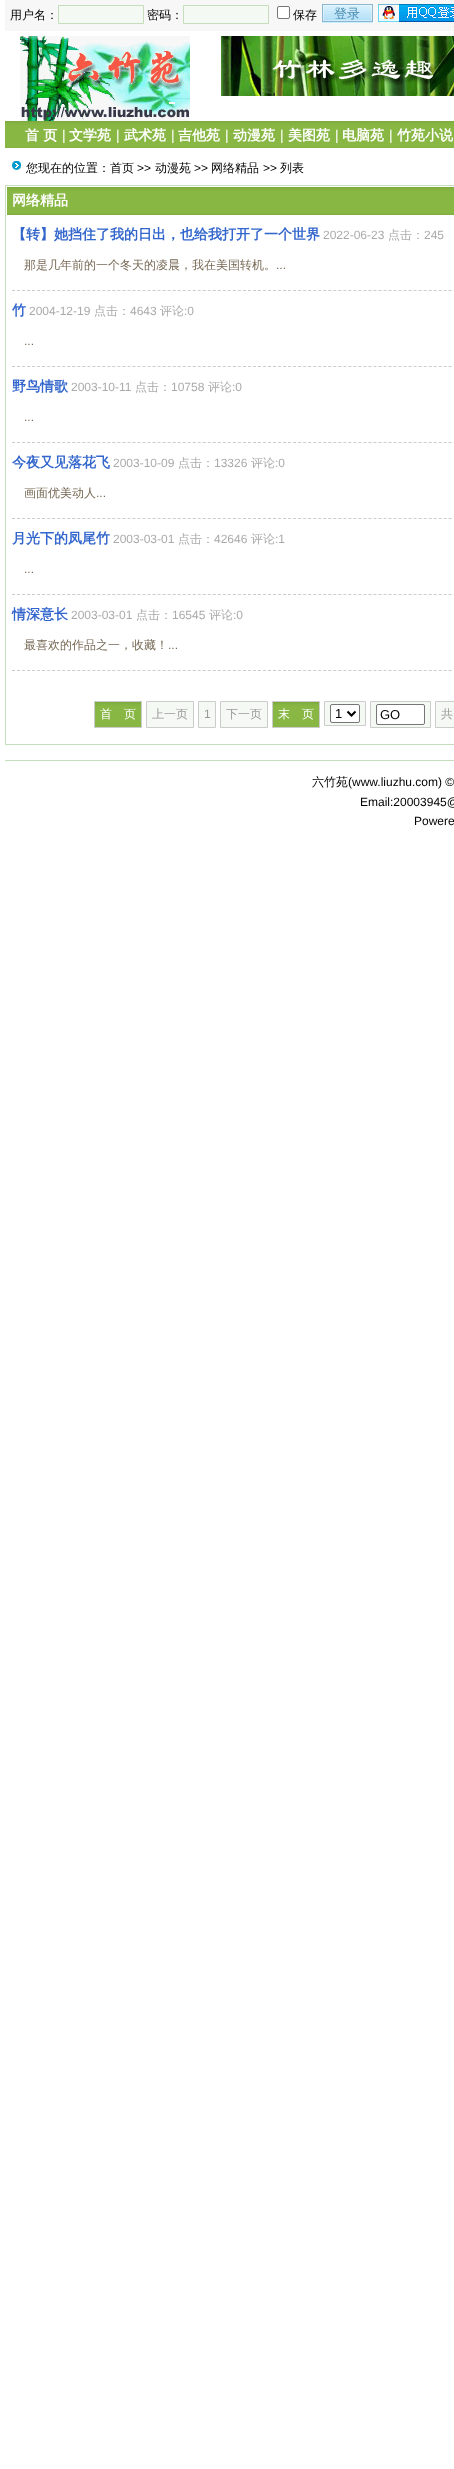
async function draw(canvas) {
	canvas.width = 454;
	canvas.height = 2469;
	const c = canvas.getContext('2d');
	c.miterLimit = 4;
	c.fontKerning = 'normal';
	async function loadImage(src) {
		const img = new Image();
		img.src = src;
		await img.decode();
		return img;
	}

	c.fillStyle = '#fff';
	c.fillRect(0, 0, 454, 2469);
	c.fillStyle = '#f7f7f7';
	c.fillRect(5, 0, 449, 31);
	c.font = '500 12px WenQuanYi Zen Hei';
	c.fillStyle = '#000';
	c.fillText('用户名：', 10, 19);
	c.fillStyle = '#f4faf3';
	c.beginPath();
	c.rect(58.5, 5.5, 85, 18);
	c.fill();
	c.strokeStyle = '#c5ddbc';
	c.stroke();
	c.fillStyle = '#000';
	c.fillText('密码：', 147, 19);
	c.fillStyle = '#f4faf3';
	c.beginPath();
	c.rect(183.5, 5.5, 85, 18);
	c.fill();
	c.stroke();
	c.fillStyle = '#fff';
	c.beginPath();
	c.roundRect(277.5, 6.5, 12, 12, 1.5);
	c.fill();
	c.strokeStyle = '#767676';
	c.stroke();
	c.fillStyle = '#000';
	c.fillText('保存', 293, 19);
	c.fillStyle = '#c8efff';
	c.fillRect(322, 22, 51, 1);
	c.drawImage(await loadImage('img1.png'), 322, 4, 51, 18);
	c.font = '500 13px WenQuanYi Zen Hei';
	c.fillStyle = '#498baf';
	c.fillText('登录', 334, 18);
	c.drawImage(await loadImage('img2.png'), 378, 4, 76, 18);
	c.drawImage(await loadImage('img3.png'), 20, 36, 170, 85);
	c.drawImage(await loadImage('img4.png'), 221, 36, 233, 60);
	c.drawImage(await loadImage('img5.png'), 5, 121, 449, 27);
	c.font = 'bold 14px WenQuanYi Zen Hei';
	c.fillStyle = '#fff';
	c.fillText('首 页', 25, 140);
	c.font = '14px Liberation Sans';
	c.fillText('|', 62, 140);
	c.font = 'bold 14px WenQuanYi Zen Hei';
	c.fillText('文学苑', 69, 140);
	c.font = '14px Liberation Sans';
	c.fillText('|', 116, 140);
	c.font = 'bold 14px WenQuanYi Zen Hei';
	c.fillText('武术苑', 124, 140);
	c.font = '14px Liberation Sans';
	c.fillText('|', 171, 140);
	c.font = 'bold 14px WenQuanYi Zen Hei';
	c.fillText('吉他苑', 178, 140);
	c.font = '14px Liberation Sans';
	c.fillText('|', 225, 140);
	c.font = 'bold 14px WenQuanYi Zen Hei';
	c.fillText('动漫苑', 233, 140);
	c.font = '14px Liberation Sans';
	c.fillText('|', 280, 140);
	c.font = 'bold 14px WenQuanYi Zen Hei';
	c.fillText('美图苑', 288, 140);
	c.font = '14px Liberation Sans';
	c.fillText('|', 335, 140);
	c.font = 'bold 14px WenQuanYi Zen Hei';
	c.fillText('电脑苑', 342, 140);
	c.font = '14px Liberation Sans';
	c.fillText('|', 389, 140);
	c.font = 'bold 14px WenQuanYi Zen Hei';
	c.fillText('竹苑小说', 397, 140);
	c.drawImage(await loadImage('img6.png'), 12, 161, 9, 9);
	c.font = '500 12px WenQuanYi Zen Hei';
	c.fillStyle = '#000';
	c.fillText('您现在的位置：首页', 26, 172);
	c.font = '12px Liberation Sans';
	c.fillText('>>', 137, 172);
	c.font = '500 12px WenQuanYi Zen Hei';
	c.fillText('动漫苑', 155, 172);
	c.font = '12px Liberation Sans';
	c.fillText('>>', 194, 172);
	c.font = '500 12px WenQuanYi Zen Hei';
	c.fillText('网络精品', 211, 172);
	c.font = '12px Liberation Sans';
	c.fillText('>>', 263, 172);
	c.font = '500 12px WenQuanYi Zen Hei';
	c.fillText('列表', 280, 172);
	c.strokeStyle = '#c5ddbc';
	c.strokeRect(5.5, 185.5, 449, 559);
	c.drawImage(await loadImage('img7.png'), 7, 187, 447, 28);
	c.font = 'bold 14px WenQuanYi Zen Hei';
	c.fillStyle = '#fff';
	c.fillText('网络精品', 12, 205);
	c.fillStyle = '#36c';
	c.fillText('【转】她挡住了我的日出，也给我打开了一个世界', 12, 239);
	c.font = '12px Liberation Sans';
	c.fillStyle = '#aaa';
	c.fillText('2022-06-23', 323, 239);
	c.font = '500 12px WenQuanYi Zen Hei';
	c.fillText('点击：', 388, 239);
	c.font = '12px Liberation Sans';
	c.fillText('245', 424, 239);
	c.font = '500 12px WenQuanYi Zen Hei';
	c.fillStyle = '#776955';
	c.fillText('那是几年前的一个冬天的凌晨，我在美国转机。', 24, 269);
	c.font = '12px Liberation Sans';
	c.fillText('...', 276, 269);
	c.beginPath();
	c.moveTo(12, 290.5);
	c.lineTo(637, 290.5);
	c.strokeStyle = '#ccc';
	c.setLineDash([3, 2.02]);
	c.stroke();
	c.font = 'bold 14px WenQuanYi Zen Hei';
	c.fillStyle = '#36c';
	c.fillText('竹', 12, 315);
	c.font = '12px Liberation Sans';
	c.fillStyle = '#aaa';
	c.fillText('2004-12-19', 29, 315);
	c.font = '500 12px WenQuanYi Zen Hei';
	c.fillText('点击：', 94, 315);
	c.font = '12px Liberation Sans';
	c.fillText('4643', 130, 315);
	c.font = '500 12px WenQuanYi Zen Hei';
	c.fillText('评论', 160, 315);
	c.font = '12px Liberation Sans';
	c.fillText(':0', 184, 315);
	c.fillStyle = '#776955';
	c.fillText('...', 24, 345);
	c.beginPath();
	c.moveTo(12, 366.5);
	c.lineTo(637, 366.5);
	c.stroke();
	c.font = 'bold 14px WenQuanYi Zen Hei';
	c.fillStyle = '#36c';
	c.fillText('野鸟情歌', 12, 391);
	c.font = '12px Liberation Sans';
	c.fillStyle = '#aaa';
	c.fillText('2003-10-11', 71, 391);
	c.font = '500 12px WenQuanYi Zen Hei';
	c.fillText('点击：', 135, 391);
	c.font = '12px Liberation Sans';
	c.fillText('10758', 171, 391);
	c.font = '500 12px WenQuanYi Zen Hei';
	c.fillText('评论', 208, 391);
	c.font = '12px Liberation Sans';
	c.fillText(':0', 232, 391);
	c.fillStyle = '#776955';
	c.fillText('...', 24, 421);
	c.beginPath();
	c.moveTo(12, 442.5);
	c.lineTo(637, 442.5);
	c.stroke();
	c.font = 'bold 14px WenQuanYi Zen Hei';
	c.fillStyle = '#36c';
	c.fillText('今夜又见落花飞', 12, 467);
	c.font = '12px Liberation Sans';
	c.fillStyle = '#aaa';
	c.fillText('2003-10-09', 113, 467);
	c.font = '500 12px WenQuanYi Zen Hei';
	c.fillText('点击：', 178, 467);
	c.font = '12px Liberation Sans';
	c.fillText('13326', 214, 467);
	c.font = '500 12px WenQuanYi Zen Hei';
	c.fillText('评论', 251, 467);
	c.font = '12px Liberation Sans';
	c.fillText(':0', 275, 467);
	c.font = '500 12px WenQuanYi Zen Hei';
	c.fillStyle = '#776955';
	c.fillText('画面优美动人', 24, 497);
	c.font = '12px Liberation Sans';
	c.fillText('...', 96, 497);
	c.beginPath();
	c.moveTo(12, 518.5);
	c.lineTo(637, 518.5);
	c.stroke();
	c.font = 'bold 14px WenQuanYi Zen Hei';
	c.fillStyle = '#36c';
	c.fillText('月光下的凤尾竹', 12, 543);
	c.font = '12px Liberation Sans';
	c.fillStyle = '#aaa';
	c.fillText('2003-03-01', 113, 543);
	c.font = '500 12px WenQuanYi Zen Hei';
	c.fillText('点击：', 178, 543);
	c.font = '12px Liberation Sans';
	c.fillText('42646', 214, 543);
	c.font = '500 12px WenQuanYi Zen Hei';
	c.fillText('评论', 251, 543);
	c.font = '12px Liberation Sans';
	c.fillText(':1', 275, 543);
	c.fillStyle = '#776955';
	c.fillText('...', 24, 573);
	c.beginPath();
	c.moveTo(12, 594.5);
	c.lineTo(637, 594.5);
	c.stroke();
	c.font = 'bold 14px WenQuanYi Zen Hei';
	c.fillStyle = '#36c';
	c.fillText('情深意长', 12, 619);
	c.font = '12px Liberation Sans';
	c.fillStyle = '#aaa';
	c.fillText('2003-03-01', 71, 619);
	c.font = '500 12px WenQuanYi Zen Hei';
	c.fillText('点击：', 136, 619);
	c.font = '12px Liberation Sans';
	c.fillText('16545', 172, 619);
	c.font = '500 12px WenQuanYi Zen Hei';
	c.fillText('评论', 209, 619);
	c.font = '12px Liberation Sans';
	c.fillText(':0', 233, 619);
	c.font = '500 12px WenQuanYi Zen Hei';
	c.fillStyle = '#776955';
	c.fillText('最喜欢的作品之一，收藏！', 24, 649);
	c.font = '12px Liberation Sans';
	c.fillText('...', 168, 649);
	c.beginPath();
	c.moveTo(12, 670.5);
	c.lineTo(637, 670.5);
	c.stroke();
	c.drawImage(await loadImage('img8.png'), 95, 702, 46, 25);
	c.setLineDash([]);
	c.strokeRect(94.5, 701.5, 47, 26);
	c.font = '500 12px WenQuanYi Zen Hei';
	c.fillStyle = '#fff';
	c.fillText('首　页', 100, 718);
	c.fillStyle = '#f4faf3';
	c.beginPath();
	c.rect(146.5, 701.5, 47, 26);
	c.fill();
	c.stroke();
	c.fillStyle = '#999';
	c.fillText('上一页', 152, 718);
	c.fillStyle = '#f4faf3';
	c.beginPath();
	c.rect(198.5, 701.5, 17, 26);
	c.fill();
	c.stroke();
	c.font = '12px Liberation Sans';
	c.fillStyle = '#999';
	c.fillText('1', 204, 718);
	c.fillStyle = '#f4faf3';
	c.beginPath();
	c.rect(220.5, 701.5, 47, 26);
	c.fill();
	c.stroke();
	c.font = '500 12px WenQuanYi Zen Hei';
	c.fillStyle = '#999';
	c.fillText('下一页', 226, 718);
	c.drawImage(await loadImage('img8.png'), 273, 702, 46, 25);
	c.strokeRect(272.5, 701.5, 47, 26);
	c.fillStyle = '#fff';
	c.fillText('末　页', 278, 718);
	c.fillStyle = '#f4faf3';
	c.beginPath();
	c.rect(324.5, 701.5, 41, 24);
	c.fill();
	c.stroke();
	c.fillStyle = '#fff';
	c.beginPath();
	c.roundRect(330.5, 704.5, 29, 18, 1.5);
	c.fill();
	c.strokeStyle = '#767676';
	c.stroke();
	c.beginPath();
	c.moveTo(347.5, 711.5);
	c.lineTo(351.5, 715.5);
	c.lineTo(355.5, 711.5);
	c.strokeStyle = '#000';
	c.lineWidth = 2;
	c.stroke();
	c.font = '13px Liberation Sans';
	c.fillStyle = '#000';
	c.fillText('1', 335, 718);
	c.fillStyle = '#f4faf3';
	c.beginPath();
	c.rect(370.5, 701.5, 60, 26);
	c.fill();
	c.strokeStyle = '#ccc';
	c.lineWidth = 1;
	c.stroke();
	c.fillStyle = '#fff';
	c.beginPath();
	c.roundRect(376.5, 704.5, 48, 20, 1.5);
	c.fill();
	c.strokeStyle = '#767676';
	c.stroke();
	c.fillStyle = '#000';
	c.fillText('GO', 380, 719);
	c.fillStyle = '#f4faf3';
	c.beginPath();
	c.rect(435.5, 701.5, 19, 26);
	c.fill();
	c.strokeStyle = '#ccc';
	c.stroke();
	c.font = '500 12px WenQuanYi Zen Hei';
	c.fillStyle = '#999';
	c.fillText('共', 441, 718);
	c.fillStyle = '#c5ddbc';
	c.fillRect(5, 760, 449, 1);
	c.fillStyle = '#000';
	c.fillText('六竹苑', 312, 786);
	c.font = '12px Liberation Sans';
	for (const [text, x, y] of [
		['(www.liuzhu.com) ©', 348, 786],
		['Email:20003945@', 360, 806],
		['Powere', 414, 825],
	]) {
		c.fillText(text, x, y);
	}
}

draw(document.querySelector('canvas'));
